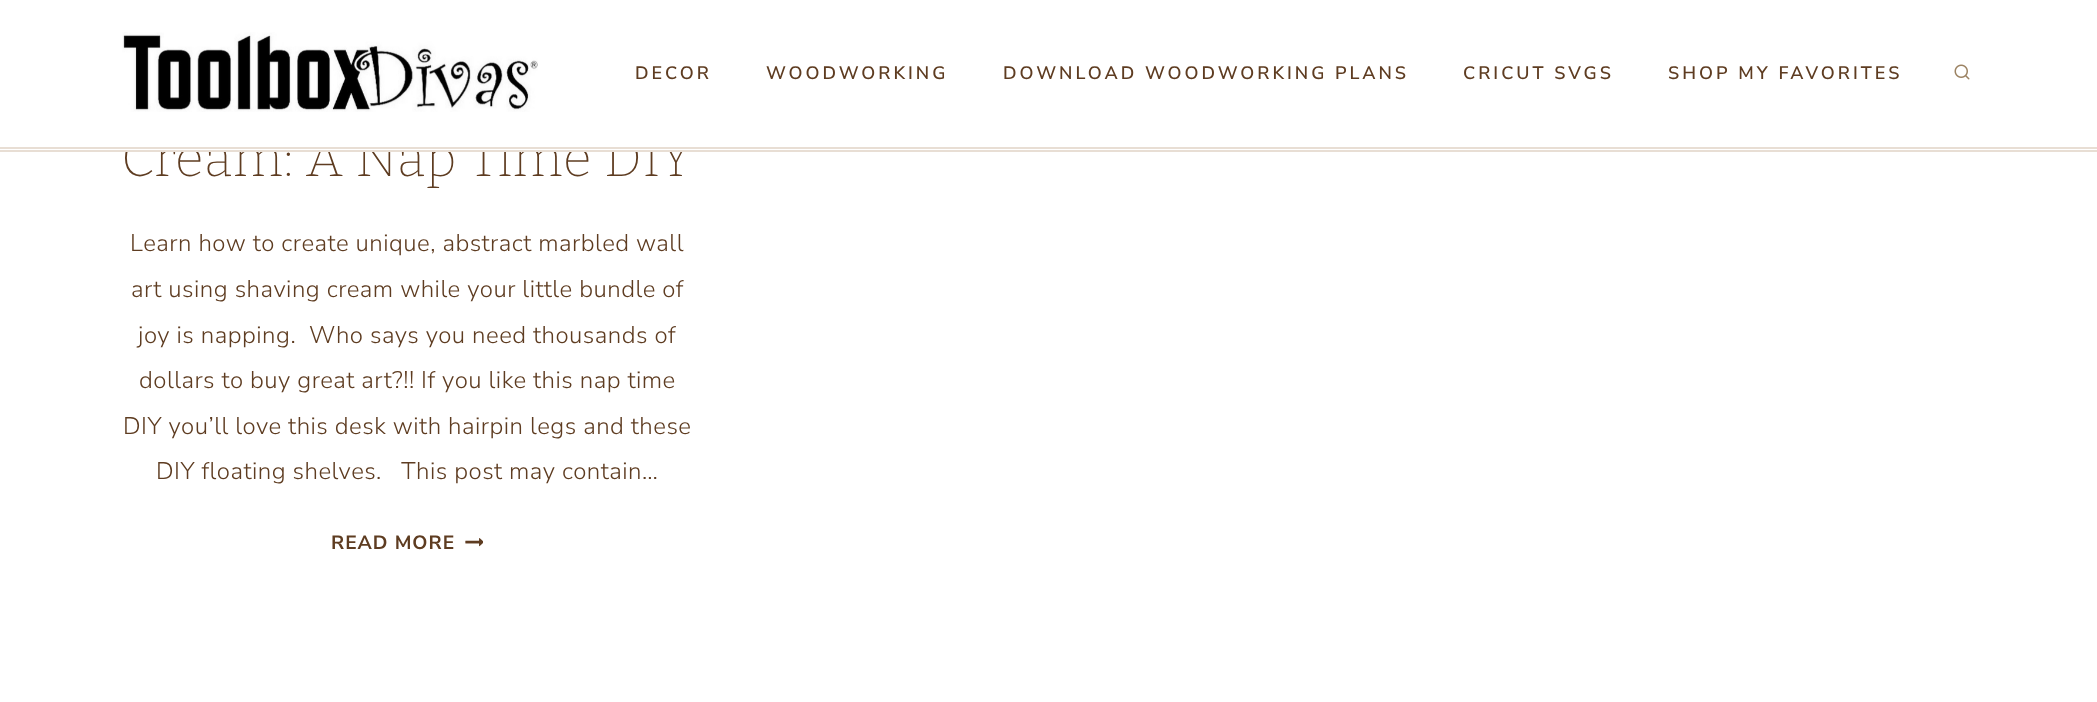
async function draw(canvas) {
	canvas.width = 2097;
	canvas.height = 702;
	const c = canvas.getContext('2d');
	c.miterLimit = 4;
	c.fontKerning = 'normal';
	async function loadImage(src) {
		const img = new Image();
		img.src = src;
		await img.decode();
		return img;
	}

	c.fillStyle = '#fff';
	c.fillRect(0, 0, 2097, 702);
	c.letterSpacing = '0.48px';
	c.font = '200 52.5px Bitter';
	c.fillStyle = '#5e3c21';
	c.fillText('Cream: A Nap Time DIY', 121, 176);
	for (const [x, y, w, h, color] of [
		[126, 137, 567, 13, '#fff'],
		[0, 147, 2097, 2, '#e8ded4'],
		[0, 150, 2097, 2, '#e8ded4'],
	]) {
		c.fillStyle = color;
		c.fillRect(x, y, w, h);
	}
	c.drawImage(await loadImage('img1.png'), 122, 32, 416, 80);
	c.letterSpacing = '3px';
	c.font = '600 18px Nunito Sans';
	c.fillStyle = '#5e3c21';
	for (const [text, x, y] of [
		['DECOR', 635, 79],
		['WOODWORKING', 766, 79],
		['DOWNLOAD WOODWORKING PLANS', 1003, 79],
		['CRICUT SVGS', 1463, 79],
		['SHOP MY FAVORITES', 1668, 79],
	]) {
		c.fillText(text, x, y);
	}
	c.drawImage(await loadImage('img2.png'), 1954, 64, 16, 16);
	c.letterSpacing = '0.48px';
	c.font = '300 24px Nunito Sans';
	for (const [text, x, y] of [
		['Learn how to create unique, abstract marbled wall', 130, 251],
		['art using shaving cream while your little bundle of', 131, 297],
		['joy is napping.  Who says you need thousands of', 138, 343],
		['dollars to buy great art?!! If you like this nap time', 139, 388],
		['DIY you’ll love this desk with hairpin legs and these', 123, 434],
		['DIY floating shelves.   This post may contain…', 156, 479],
	]) {
		c.fillText(text, x, y);
	}
	c.letterSpacing = '1px';
	c.font = 'bold 19.25px Nunito Sans';
	c.fillText('READ MORE', 331, 549);
	c.drawImage(await loadImage('img3.png'), 465, 538, 18, 9);
}

draw(document.querySelector('canvas'));
